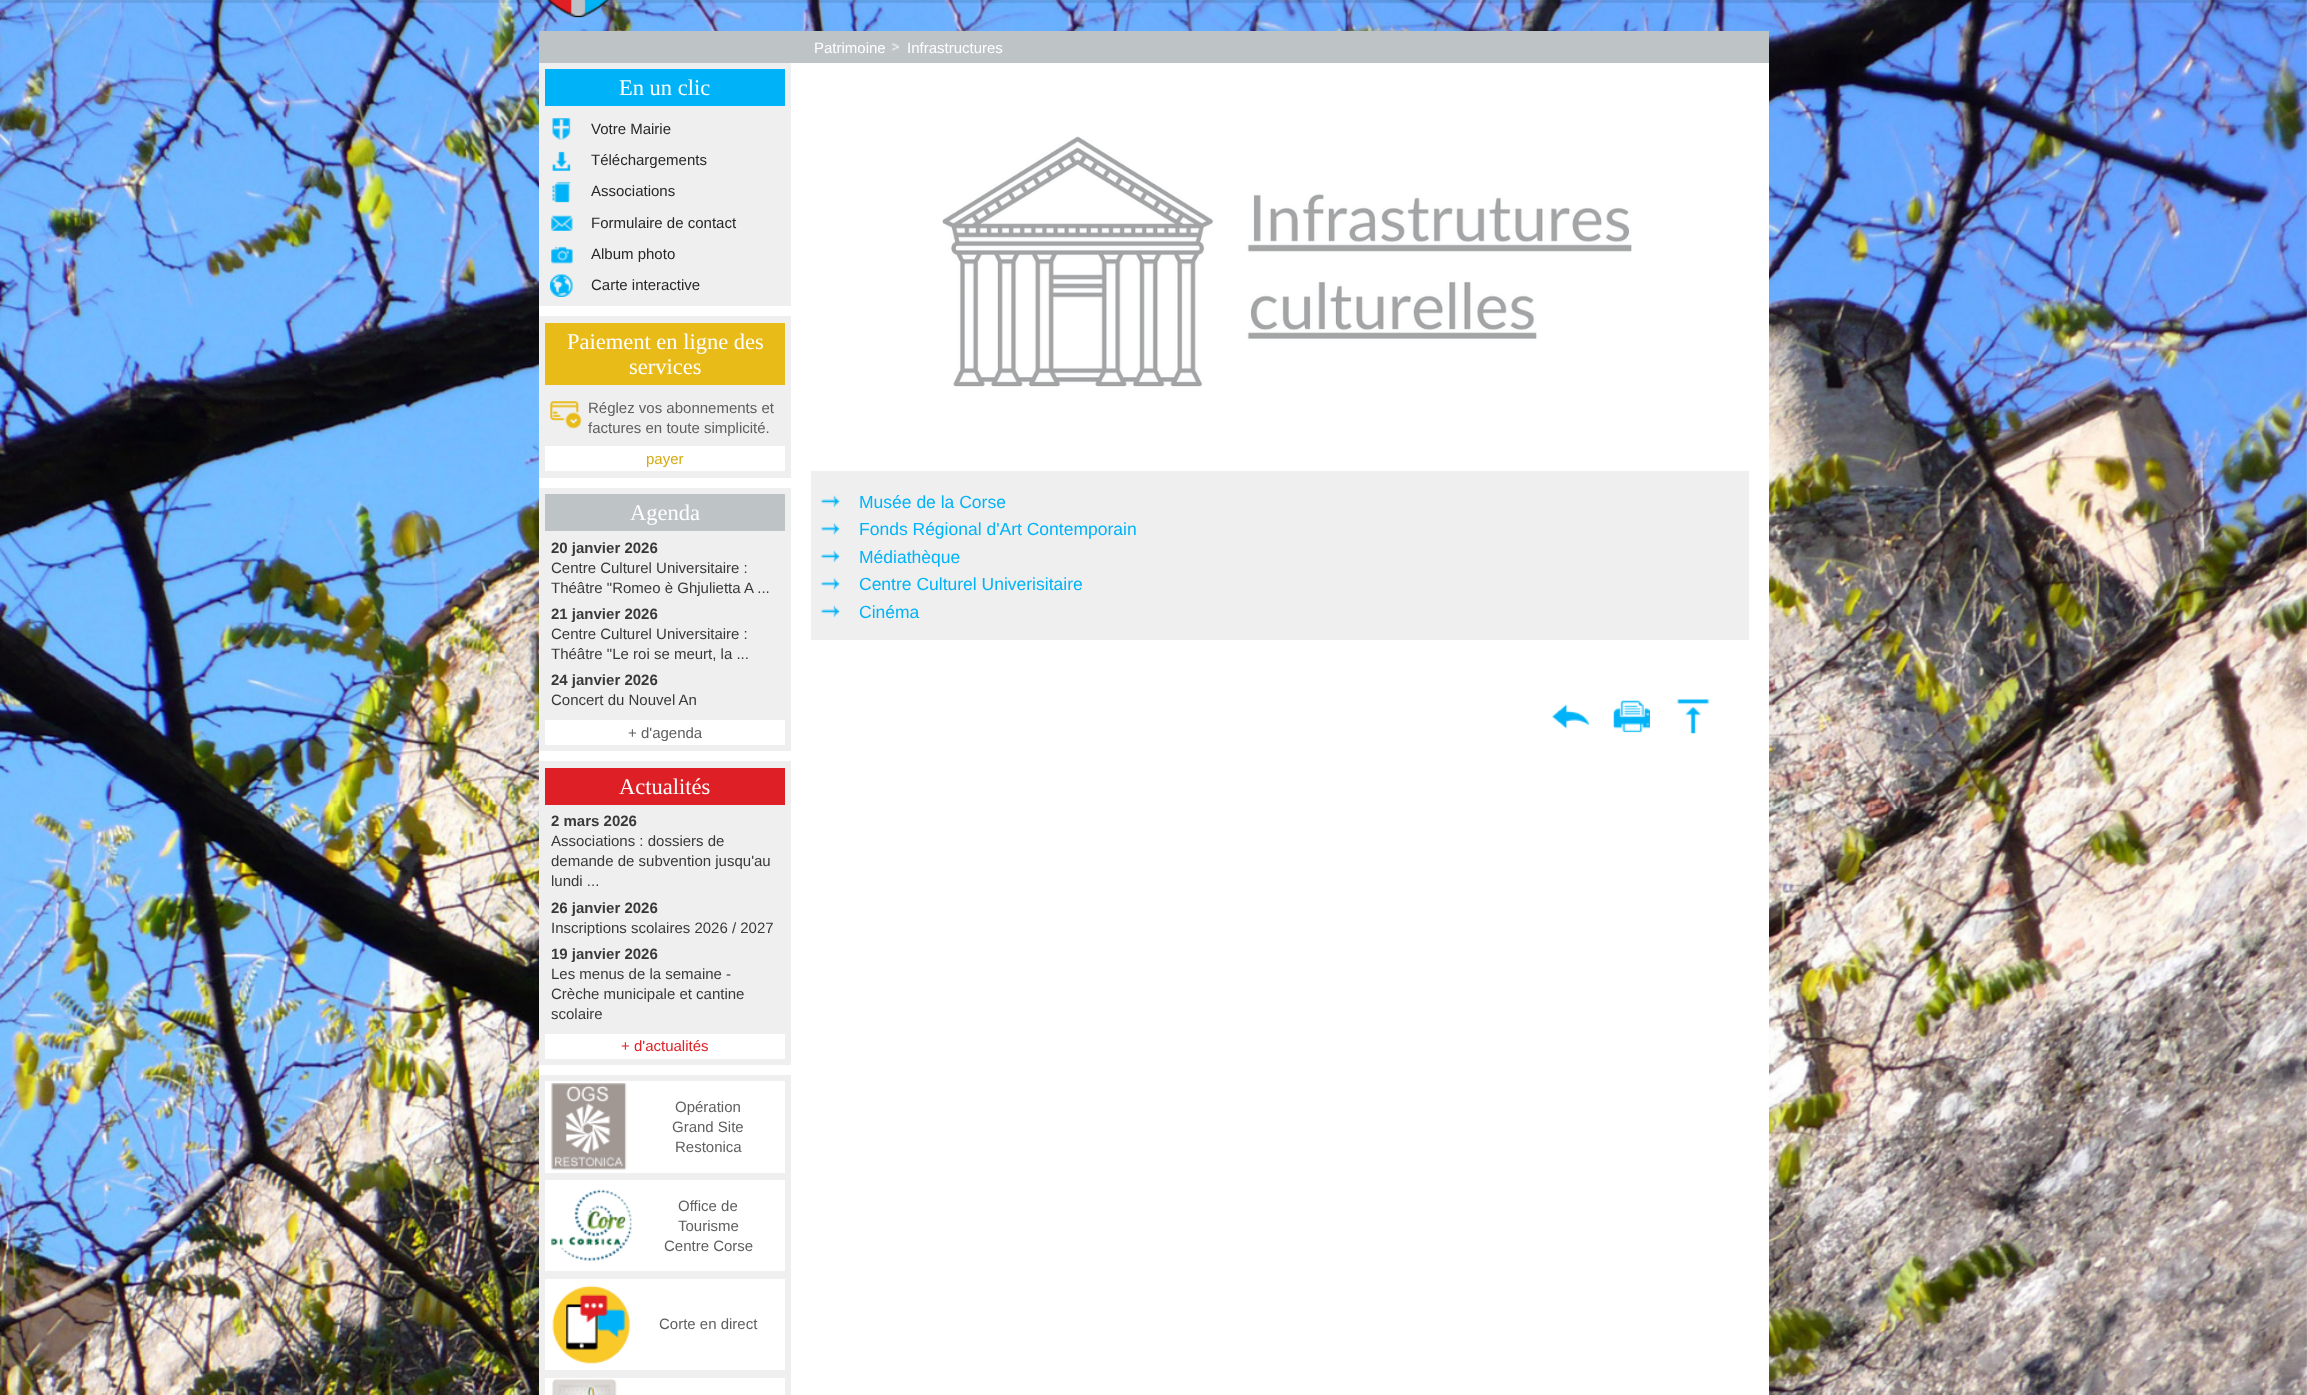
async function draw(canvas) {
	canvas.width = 2307;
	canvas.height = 1395;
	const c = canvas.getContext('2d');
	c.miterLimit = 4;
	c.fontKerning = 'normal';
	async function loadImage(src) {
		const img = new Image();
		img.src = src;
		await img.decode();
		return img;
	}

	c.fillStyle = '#fff';
	c.fillRect(0, 0, 2307, 1395);
	c.drawImage(await loadImage('img1.png'), 0, 0, 2307, 1395);
	c.fillStyle = '#00000017';
	c.fillRect(0, 0, 2307, 3);
	c.drawImage(await loadImage('img2.png'), 546, 0, 64, 18);
	c.fillStyle = '#fff';
	c.fillRect(539, 63, 1230, 1332);
	c.fillStyle = '#bec3c6';
	c.fillRect(539, 31, 1230, 32);
	c.font = '15px Liberation Sans';
	c.fillStyle = '#fff';
	c.fillText('Patrimoine', 814, 53);
	c.drawImage(await loadImage('img3.png'), 891, 43, 8, 8);
	c.fillText('Infrastructures', 907, 53);
	c.fillStyle = '#efefef';
	c.fillRect(539, 63, 252, 243);
	c.fillStyle = '#00b3f8';
	c.fillRect(545, 69, 240, 37);
	c.font = '22.5px Liberation Serif';
	c.fillStyle = '#fff';
	c.fillText('En un clic', 619, 95);
	c.drawImage(await loadImage('img4.png'), 552, 118, 19, 22);
	c.font = '15px Liberation Sans';
	c.fillStyle = '#272727';
	c.fillText('Votre Mairie', 591, 134);
	c.drawImage(await loadImage('img5.png'), 552, 151, 19, 20);
	c.fillText('Téléchargements', 591, 165);
	c.drawImage(await loadImage('img6.png'), 552, 181, 19, 22);
	c.fillText('Associations', 591, 196);
	c.drawImage(await loadImage('img7.png'), 551, 215, 22, 16);
	c.fillText('Formulaire de contact', 591, 228);
	c.drawImage(await loadImage('img8.png'), 551, 246, 22, 18);
	c.fillText('Album photo', 591, 259);
	c.drawImage(await loadImage('img9.png'), 550, 274, 23, 23);
	c.fillText('Carte interactive', 591, 290);
	c.fillStyle = '#efefef';
	c.fillRect(539, 316, 252, 162);
	c.fillStyle = '#e9bb19';
	c.fillRect(545, 323, 240, 62);
	c.font = '22.5px Liberation Serif';
	c.fillStyle = '#fff';
	c.fillText('Paiement en ligne des', 567, 349);
	c.fillText('services', 629, 374);
	c.drawImage(await loadImage('img10.png'), 550, 401, 32, 28);
	c.font = '15px Liberation Sans';
	c.fillStyle = '#5f5f5f';
	c.fillText('Réglez vos abonnements et', 588, 413);
	c.fillText('factures en toute simplicité.', 588, 433);
	c.fillStyle = '#fff';
	c.fillRect(545, 446, 240, 25);
	c.fillStyle = '#d6aa11';
	c.fillText('payer', 646, 464);
	c.fillStyle = '#efefef';
	c.fillRect(539, 488, 252, 263);
	c.fillStyle = '#bec3c5';
	c.fillRect(545, 494, 240, 37);
	c.font = '22.5px Liberation Serif';
	c.fillStyle = '#fff';
	c.fillText('Agenda', 630, 520);
	c.font = 'bold 15px Liberation Sans';
	c.fillStyle = '#393939';
	c.fillText('20 janvier 2026', 551, 553);
	c.font = '15px Liberation Sans';
	c.fillText('Centre Culturel Universitaire :', 551, 573);
	c.fillText('Théâtre "Romeo è Ghjulietta A ...', 551, 593);
	c.font = 'bold 15px Liberation Sans';
	c.fillText('21 janvier 2026', 551, 619);
	c.font = '15px Liberation Sans';
	c.fillText('Centre Culturel Universitaire :', 551, 639);
	c.fillText('Théâtre "Le roi se meurt, la ...', 551, 659);
	c.font = 'bold 15px Liberation Sans';
	c.fillText('24 janvier 2026', 551, 685);
	c.font = '15px Liberation Sans';
	c.fillText('Concert du Nouvel An', 551, 705);
	c.fillStyle = '#fff';
	c.fillRect(545, 720, 240, 25);
	c.fillStyle = '#5f5f5f';
	c.fillText('+ d\'agenda', 628, 738);
	c.fillStyle = '#efefef';
	c.fillRect(539, 761, 252, 304);
	c.fillStyle = '#de2026';
	c.fillRect(545, 768, 240, 37);
	c.font = '22.5px Liberation Serif';
	c.fillStyle = '#fff';
	c.fillText('Actualités', 619, 794);
	c.font = 'bold 15px Liberation Sans';
	c.fillStyle = '#393939';
	c.fillText('2 mars 2026', 551, 826);
	c.font = '15px Liberation Sans';
	for (const [text, x, y] of [
		['Associations : dossiers de', 551, 846],
		['demande de subvention jusqu\'au', 551, 866],
		['lundi ...', 551, 886],
	]) {
		c.fillText(text, x, y);
	}
	c.font = 'bold 15px Liberation Sans';
	c.fillText('26 janvier 2026', 551, 913);
	c.font = '15px Liberation Sans';
	c.fillText('Inscriptions scolaires 2026 / 2027', 551, 933);
	c.font = 'bold 15px Liberation Sans';
	c.fillText('19 janvier 2026', 551, 959);
	c.font = '15px Liberation Sans';
	for (const [text, x, y] of [
		['Les menus de la semaine -', 551, 979],
		['Crèche municipale et cantine', 551, 999],
		['scolaire', 551, 1019],
	]) {
		c.fillText(text, x, y);
	}
	c.fillStyle = '#fff';
	c.fillRect(545, 1034, 240, 25);
	c.fillStyle = '#de2026';
	c.fillText('+ d\'actualités', 621, 1051);
	c.fillStyle = '#efefef';
	c.fillRect(539, 1075, 252, 320);
	c.fillStyle = '#fff';
	c.fillRect(545, 1081, 240, 92);
	c.drawImage(await loadImage('img11.png'), 551, 1083, 76, 87);
	c.fillStyle = '#5f5f5f';
	for (const [text, x, y] of [
		['Opération', 675, 1112],
		['Grand Site', 672, 1132],
		['Restonica', 675, 1152],
	]) {
		c.fillText(text, x, y);
	}
	c.fillStyle = '#fff';
	c.fillRect(545, 1180, 240, 91);
	c.drawImage(await loadImage('img12.png'), 551, 1189, 81, 72);
	c.fillStyle = '#5f5f5f';
	for (const [text, x, y] of [
		['Office de', 678, 1211],
		['Tourisme', 678, 1231],
		['Centre Corse', 664, 1251],
	]) {
		c.fillText(text, x, y);
	}
	c.fillStyle = '#fff';
	c.fillRect(545, 1279, 240, 91);
	c.drawImage(await loadImage('img13.png'), 552, 1285, 79, 79);
	c.fillStyle = '#5f5f5f';
	c.fillText('Corte en direct', 659, 1329);
	c.fillStyle = '#fff';
	c.fillRect(545, 1378, 240, 17);
	c.drawImage(await loadImage('img14.png'), 552, 1379, 65, 16);
	c.drawImage(await loadImage('img15.png'), 942, 136, 690, 251);
	c.fillStyle = '#efefef';
	c.fillRect(811, 471, 938, 169);
	c.drawImage(await loadImage('img16.png'), 821, 495, 19, 13);
	c.font = '17.5px Liberation Sans';
	c.fillStyle = '#00b3f8';
	c.fillText('Musée de la Corse', 859, 508);
	c.drawImage(await loadImage('img17.png'), 821, 523, 19, 12);
	c.fillText('Fonds Régional d\'Art Contemporain', 859, 535);
	c.drawImage(await loadImage('img16.png'), 821, 550, 19, 13);
	c.fillText('Médiathèque', 859, 563);
	c.drawImage(await loadImage('img17.png'), 821, 578, 19, 12);
	c.fillText('Centre Culturel Univerisitaire', 859, 590);
	c.drawImage(await loadImage('img16.png'), 821, 605, 19, 13);
	c.fillText('Cinéma', 859, 618);
	c.drawImage(await loadImage('img18.png'), 1552, 704, 37, 25);
	c.drawImage(await loadImage('img19.png'), 1613, 700, 37, 33);
	c.drawImage(await loadImage('img20.png'), 1677, 699, 32, 35);
}

draw(document.querySelector('canvas'));
